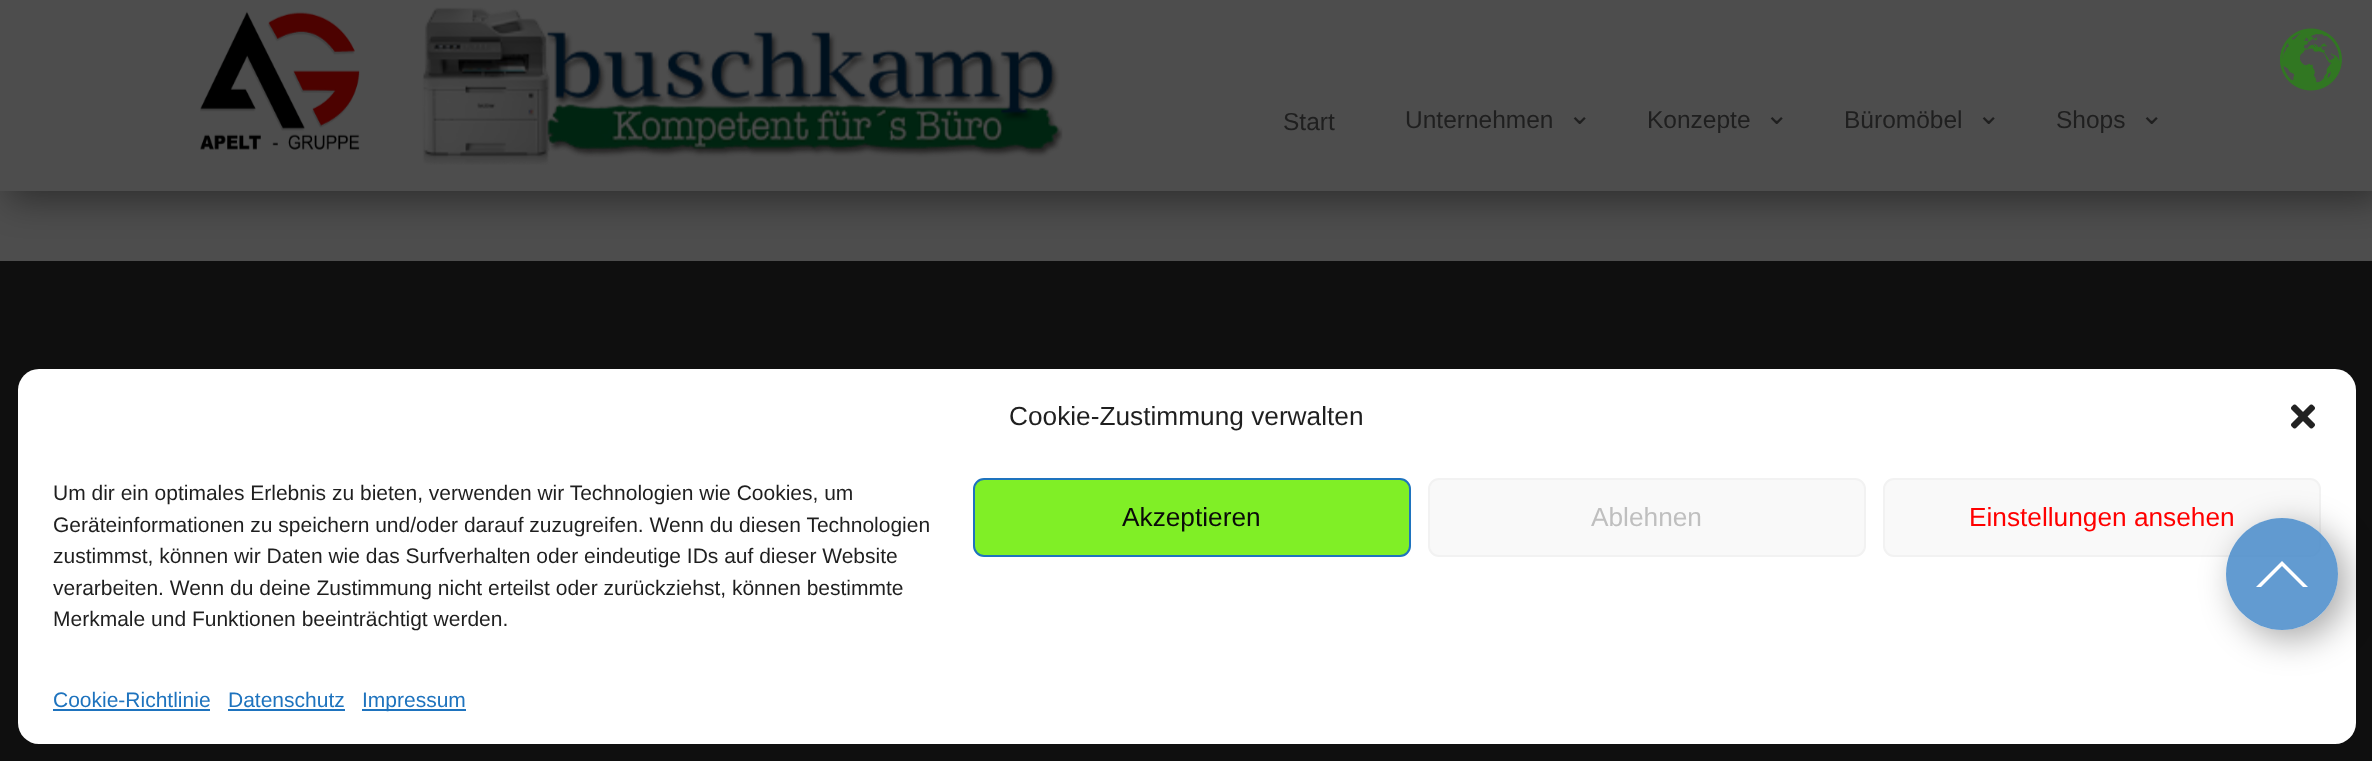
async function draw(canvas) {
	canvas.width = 2372;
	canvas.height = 761;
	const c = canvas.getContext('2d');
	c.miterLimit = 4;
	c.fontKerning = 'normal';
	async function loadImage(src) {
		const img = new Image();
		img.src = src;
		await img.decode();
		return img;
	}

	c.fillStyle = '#4d4d4d';
	c.fillRect(0, 0, 2372, 761);
	c.fillStyle = '#00000066';
	c.filter = 'blur(17.5px)';
	c.beginPath();
	c.rect(9, 9, 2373, 191);
	c.fill();
	c.filter = 'none';
	c.fillStyle = '#4d4d4d';
	c.fillRect(0, 0, 2372, 191);
	c.drawImage(await loadImage('img1.png'), 2280, 28, 62, 63);
	c.drawImage(await loadImage('img2.png'), 200, 11, 160, 139);
	c.drawImage(await loadImage('img3.png'), 422, 7, 641, 158);
	c.font = '24.5px Liberation Sans';
	c.fillStyle = '#1f1f1f';
	c.fillText('Start', 1283, 130);
	c.fillText('Unternehmen', 1405, 128);
	c.font = '28px DejaVu Sans';
	c.fillText('⌄', 1568, 124);
	c.font = '24.5px Liberation Sans';
	c.fillText('Konzepte', 1647, 128);
	c.font = '28px DejaVu Sans';
	c.fillText('⌄', 1765, 124);
	c.font = '24.5px Liberation Sans';
	c.fillText('Büromöbel', 1844, 128);
	c.font = '28px DejaVu Sans';
	c.fillText('⌄', 1977, 124);
	c.font = '24.5px Liberation Sans';
	c.fillText('Shops', 2056, 128);
	c.font = '28px DejaVu Sans';
	c.fillText('⌄', 2140, 124);
	c.fillStyle = '#0f0f0f';
	c.fillRect(0, 261, 2372, 500);
	c.fillStyle = '#fff';
	c.beginPath();
	c.roundRect(18, 369, 2338, 375, 21);
	c.fill();
	c.font = '26.25px Liberation Sans';
	c.fillStyle = '#1f1f1f';
	c.fillText('Cookie-Zustimmung verwalten', 1009, 425);
	c.drawImage(await loadImage('img4.png'), 2291, 404, 24, 25);
	c.font = '21px Liberation Sans';
	for (const [text, x, y] of [
		['Um dir ein optimales Erlebnis zu bieten, verwenden wir Technologien wie Cookies, um', 53, 500],
		['Geräteinformationen zu speichern und/oder darauf zuzugreifen. Wenn du diesen Technologien', 53, 532],
		['zustimmst, können wir Daten wie das Surfverhalten oder eindeutige IDs auf dieser Website', 53, 563],
		['verarbeiten. Wenn du deine Zustimmung nicht erteilst oder zurückziehst, können bestimmte', 53, 595],
		['Merkmale und Funktionen beeinträchtigt werden.', 53, 626],
	]) {
		c.fillText(text, x, y);
	}
	c.fillStyle = '#80ef26';
	c.beginPath();
	c.roundRect(974, 479, 436, 77, 10);
	c.fill();
	c.strokeStyle = '#1e73be';
	c.lineWidth = 2;
	c.stroke();
	c.font = '26.25px Liberation Sans';
	c.fillStyle = '#0a0a0a';
	c.fillText('Akzeptieren', 1122, 526);
	c.fillStyle = '#f9f9f9';
	c.beginPath();
	c.roundRect(1429, 479, 436, 77, 10);
	c.fill();
	c.strokeStyle = '#f2f2f2';
	c.stroke();
	c.fillStyle = '#bfbfbf';
	c.fillText('Ablehnen', 1591, 526);
	c.fillStyle = '#f9f9f9';
	c.beginPath();
	c.roundRect(1884, 479, 436, 77, 10);
	c.fill();
	c.stroke();
	c.fillStyle = '#f00';
	c.fillText('Einstellungen ansehen', 1969, 526);
	c.font = '21px Liberation Sans';
	c.fillStyle = '#1e73be';
	c.fillText('Cookie-Richtlinie', 53, 707);
	c.fillRect(53, 709, 157, 2);
	c.fillText('Datenschutz', 228, 707);
	c.fillRect(228, 709, 117, 2);
	c.fillRect(362, 709, 104, 2);
	c.fillText('Impressum', 362, 707);
	c.save();
	c.beginPath();
	c.moveTo(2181, 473);
	c.lineTo(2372, 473);
	c.lineTo(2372, 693);
	c.lineTo(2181, 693);
	c.closePath();
	c.moveTo(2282, 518);
	c.bezierCurveTo(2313, 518, 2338, 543, 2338, 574);
	c.bezierCurveTo(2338, 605, 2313, 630, 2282, 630);
	c.bezierCurveTo(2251, 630, 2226, 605, 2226, 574);
	c.bezierCurveTo(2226, 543, 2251, 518, 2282, 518);
	c.closePath();
	c.clip('evenodd');
	c.fillStyle = '#00000057';
	c.filter = 'blur(17.5px)';
	c.beginPath();
	c.roundRect(2235, 527, 112, 112, 56);
	c.fill();
	c.filter = 'none';
	c.restore();
	c.fillStyle = '#478ac9d9';
	c.beginPath();
	c.arc(2282, 574, 56, 0, 2 * Math.PI);
	c.fill();
	c.fillStyle = '#fff';
	c.beginPath();
	c.moveTo(2282, 566);
	c.lineTo(2303, 587);
	c.lineTo(2308, 587);
	c.lineTo(2282, 561);
	c.lineTo(2256, 587);
	c.lineTo(2261, 587);
	c.closePath();
	c.fill();
}

draw(document.querySelector('canvas'));
